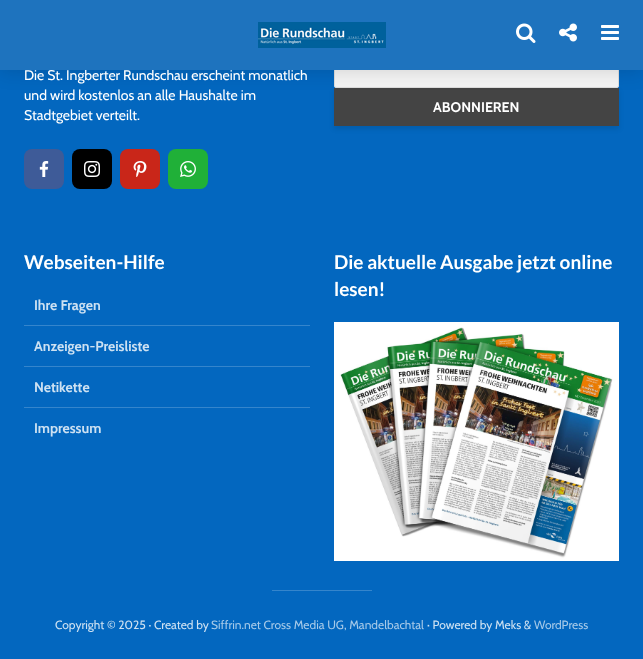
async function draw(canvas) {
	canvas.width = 643;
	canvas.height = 659;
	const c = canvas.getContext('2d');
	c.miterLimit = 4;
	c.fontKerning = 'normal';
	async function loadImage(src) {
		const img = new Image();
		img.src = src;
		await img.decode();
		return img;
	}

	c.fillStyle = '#0367bf';
	c.fillRect(0, 0, 643, 659);
	c.fillStyle = '#f4f4f4';
	c.beginPath();
	c.roundRect(334.5, 48.5, 284, 39, 1.5);
	c.fill();
	c.strokeStyle = '#ddd';
	c.stroke();
	c.fillStyle = '#0000001a';
	c.filter = 'blur(2.5px)';
	c.beginPath();
	c.rect(334, 91, 285, 38);
	c.fill();
	c.filter = 'none';
	c.fillStyle = '#444';
	c.fillRect(334, 88, 285, 38);
	c.fillStyle = '#00000026';
	c.filter = 'blur(10px)';
	c.beginPath();
	c.rect(0, 0, 643, 70);
	c.fill();
	c.filter = 'none';
	c.font = '14px Cabin';
	c.fillStyle = '#fff';
	c.fillText('Die St. Ingberter Rundschau erscheint monatlich', 24, 80);
	c.fillStyle = '#1e73be';
	c.fillRect(0, 0, 643, 70);
	c.drawImage(await loadImage('img1.png'), 258, 22, 128, 26);
	c.drawImage(await loadImage('img2.png'), 516, 23, 20, 20);
	c.drawImage(await loadImage('img3.png'), 559, 23, 18, 19);
	c.drawImage(await loadImage('img4.png'), 601, 25, 18, 15);
	c.fillStyle = '#fff';
	c.fillText('und wird kostenlos an alle Haushalte im', 24, 100);
	c.fillText('Stadtgebiet verteilt.', 24, 120);
	c.fillStyle = '#3e5b98';
	c.beginPath();
	c.roundRect(24, 149, 40, 40, 8);
	c.fill();
	c.drawImage(await loadImage('img5.png'), 39, 161, 10, 16);
	c.fillStyle = '#000';
	c.beginPath();
	c.roundRect(72, 149, 40, 40, 8);
	c.fill();
	c.drawImage(await loadImage('img6.png'), 84, 161, 16, 16);
	c.fillStyle = '#c92619';
	c.beginPath();
	c.roundRect(120, 149, 40, 40, 8);
	c.fill();
	c.drawImage(await loadImage('img7.png'), 133, 161, 14, 16);
	c.fillStyle = '#20b038';
	c.beginPath();
	c.roundRect(168, 149, 40, 40, 8);
	c.fill();
	c.drawImage(await loadImage('img8.png'), 180, 161, 16, 16);
	c.font = 'bold 14px Cabin';
	c.fillStyle = '#fff';
	c.fillText('ABONNIEREN', 433, 112);
	c.font = 'bold 19px Lato';
	c.fillText('Webseiten-Hilfe', 24, 269);
	c.fillStyle = '#3585cc';
	c.fillRect(24, 325, 286, 1);
	c.font = 'bold 14px Cabin';
	c.fillStyle = '#cde1f2';
	c.fillText('Ihre Fragen', 34, 310);
	c.fillStyle = '#3585cc';
	c.fillRect(24, 366, 286, 1);
	c.fillStyle = '#cde1f2';
	c.fillText('Anzeigen-Preisliste', 34, 351);
	c.fillStyle = '#3585cc';
	c.fillRect(24, 407, 286, 1);
	c.fillStyle = '#cde1f2';
	c.fillText('Netikette', 34, 392);
	c.fillText('Impressum', 34, 433);
	c.font = 'bold 19px Lato';
	c.fillStyle = '#fff';
	c.fillText('Die aktuelle Ausgabe jetzt online', 334, 269);
	c.fillText('lesen!', 334, 296);
	c.drawImage(await loadImage('img9.png'), 334, 322, 285, 239);
	c.fillStyle = '#3585cc';
	c.fillRect(272, 590, 100, 1);
	c.font = '12px Cabin';
	c.fillStyle = '#cde1f2';
	c.fillText('Copyright © 2025 · Created by', 55, 629);
	c.fillStyle = '#a5c9e8';
	c.fillText('Siffrin.net Cross Media UG, Mandelbachtal', 211, 629);
	c.fillStyle = '#cde1f2';
	c.fillText('· Powered by Meks &', 427, 629);
	c.fillStyle = '#a5c9e8';
	c.fillText('WordPress', 534, 629);
}

draw(document.querySelector('canvas'));
